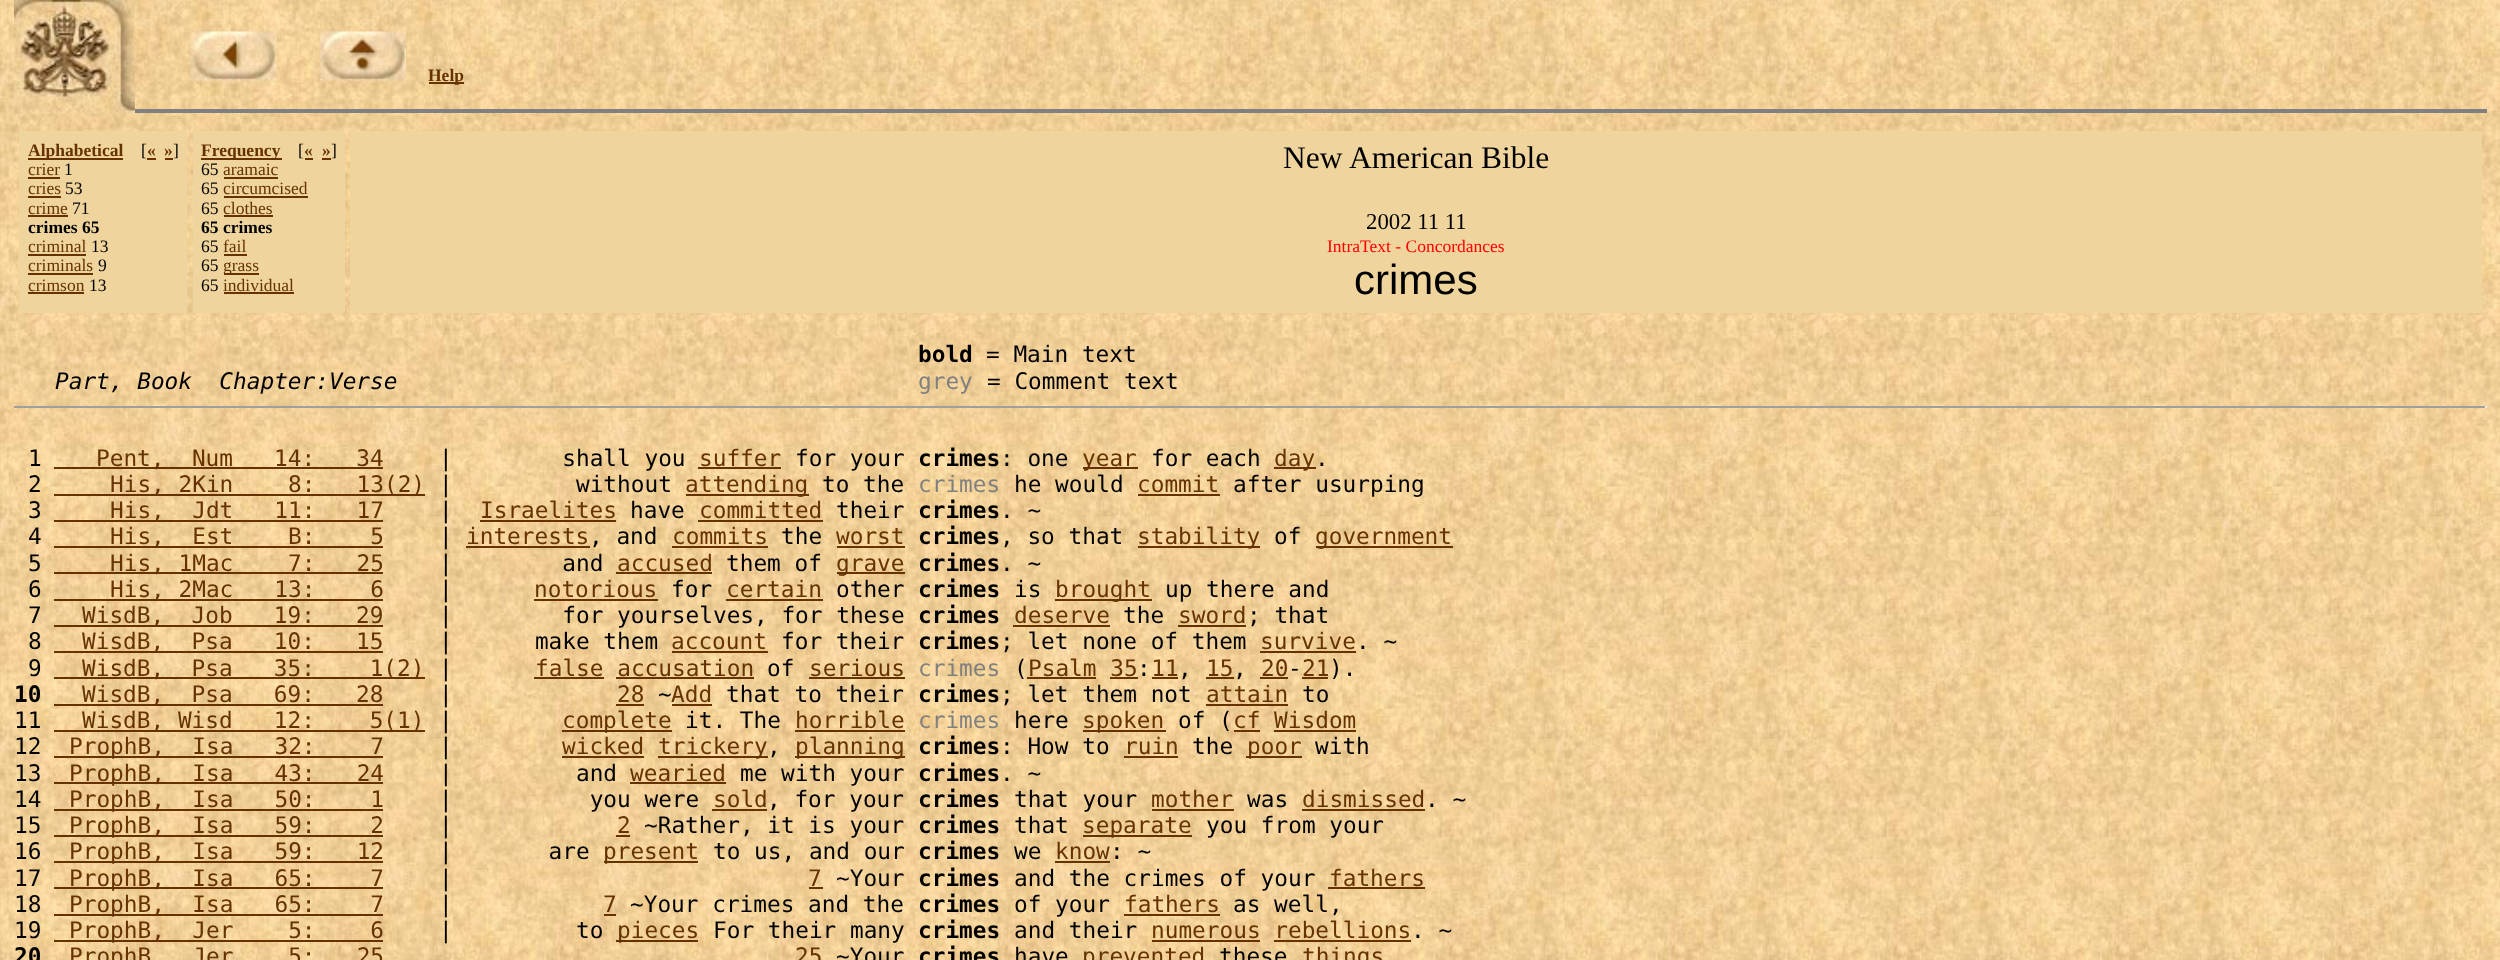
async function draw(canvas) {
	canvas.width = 2500;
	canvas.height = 960;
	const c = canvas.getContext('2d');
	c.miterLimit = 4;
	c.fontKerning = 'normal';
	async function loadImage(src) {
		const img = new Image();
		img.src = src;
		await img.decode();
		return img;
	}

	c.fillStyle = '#fff';
	c.fillRect(0, 0, 2500, 960);
	c.drawImage(await loadImage('img1.png'), 0, 0, 2500, 960);
	c.drawImage(await loadImage('img2.png'), 14, 0, 121, 114);
	c.drawImage(await loadImage('img3.png'), 190, 31, 87, 50);
	c.drawImage(await loadImage('img4.png'), 320, 31, 86, 50);
	c.fillStyle = '#630';
	c.fillRect(429, 82, 35, 2);
	c.font = 'bold 17.5px Liberation Serif';
	c.fillText('Help', 428, 81);
	for (const [x, y, w, h, color] of [
		[135, 109, 2352, 4, '#808080'],
		[19, 131, 168, 182, '#efd49d'],
		[28, 158, 95, 2, '#630'],
	]) {
		c.fillStyle = color;
		c.fillRect(x, y, w, h);
	}
	c.fillText('Alphabetical', 28, 156);
	c.font = '17.5px Liberation Serif';
	c.fillStyle = '#000';
	c.fillText('[', 141, 156);
	c.font = 'bold 17.5px Liberation Serif';
	c.fillStyle = '#630';
	c.fillText('«', 147, 156);
	c.fillRect(147, 158, 9, 2);
	c.fillText('»', 164, 156);
	c.fillRect(165, 158, 8, 2);
	c.font = '17.5px Liberation Serif';
	c.fillStyle = '#000';
	c.fillText(']', 173, 156);
	c.fillStyle = '#630';
	c.fillText('crier', 28, 175);
	c.fillRect(28, 177, 32, 2);
	c.fillStyle = '#000';
	c.fillText('1', 64, 175);
	c.fillStyle = '#630';
	c.fillText('cries', 28, 194);
	c.fillRect(28, 196, 33, 2);
	c.fillStyle = '#000';
	c.fillText('53', 65, 194);
	c.fillStyle = '#630';
	c.fillText('crime', 28, 214);
	c.fillRect(28, 215, 40, 2);
	c.fillStyle = '#000';
	c.fillText('71', 72, 214);
	c.font = 'bold 17.5px Liberation Serif';
	c.fillText('crimes 65', 28, 233);
	c.font = '17.5px Liberation Serif';
	c.fillStyle = '#630';
	c.fillText('criminal', 28, 252);
	c.fillRect(28, 254, 58, 2);
	c.fillStyle = '#000';
	c.fillText('13', 91, 252);
	c.fillStyle = '#630';
	c.fillText('criminals', 28, 271);
	c.fillRect(28, 273, 65, 2);
	c.fillStyle = '#000';
	c.fillText('9', 98, 271);
	c.fillStyle = '#630';
	c.fillText('crimson', 28, 291);
	c.fillRect(28, 292, 56, 2);
	c.fillStyle = '#000';
	c.fillText('13', 89, 291);
	c.fillStyle = '#efd49d';
	c.fillRect(193, 131, 152, 182);
	c.fillStyle = '#630';
	c.fillRect(201, 158, 81, 2);
	c.font = 'bold 17.5px Liberation Serif';
	c.fillText('Frequency', 201, 156);
	c.font = '17.5px Liberation Serif';
	c.fillStyle = '#000';
	c.fillText('[', 298, 156);
	c.font = 'bold 17.5px Liberation Serif';
	c.fillStyle = '#630';
	c.fillText('«', 304, 156);
	c.fillRect(305, 158, 8, 2);
	c.fillText('»', 322, 156);
	c.fillRect(322, 158, 9, 2);
	c.font = '17.5px Liberation Serif';
	c.fillStyle = '#000';
	c.fillText(']', 331, 156);
	c.fillText('65', 201, 175);
	c.fillStyle = '#630';
	c.fillText('aramaic', 223, 175);
	c.fillRect(224, 177, 54, 2);
	c.fillStyle = '#000';
	c.fillText('65', 201, 194);
	c.fillStyle = '#630';
	c.fillText('circumcised', 223, 194);
	c.fillRect(224, 196, 84, 2);
	c.fillStyle = '#000';
	c.fillText('65', 201, 214);
	c.fillStyle = '#630';
	c.fillText('clothes', 223, 214);
	c.fillRect(224, 215, 49, 2);
	c.font = 'bold 17.5px Liberation Serif';
	c.fillStyle = '#000';
	c.fillText('65 crimes', 201, 233);
	c.font = '17.5px Liberation Serif';
	c.fillText('65', 201, 252);
	c.fillStyle = '#630';
	c.fillText('fail', 223, 252);
	c.fillRect(224, 254, 23, 2);
	c.fillStyle = '#000';
	c.fillText('65', 201, 271);
	c.fillStyle = '#630';
	c.fillRect(224, 273, 35, 2);
	c.fillText('grass', 223, 271);
	c.fillStyle = '#000';
	c.fillText('65', 201, 291);
	c.fillStyle = '#630';
	c.fillText('individual', 223, 291);
	c.fillRect(224, 292, 70, 2);
	c.fillStyle = '#efd49d';
	c.fillRect(350, 131, 2132, 182);
	c.font = '31.5px Liberation Serif';
	c.fillStyle = '#000';
	c.fillText('New', 1283, 168);
	c.fillText('American Bible', 1349, 168);
	c.font = '22.75px Liberation Serif';
	c.fillText('2002 11 11', 1366, 229);
	c.font = '17.5px Liberation Serif';
	c.fillStyle = '#f00';
	c.fillText('IntraText - Concordances', 1327, 252);
	c.font = '42px Liberation Sans';
	c.fillStyle = '#000';
	c.fillText('crimes', 1354, 294);
	c.font = 'bold 22.75px DejaVu Sans Mono';
	c.fillText('bold', 918, 362);
	c.font = '22.75px DejaVu Sans Mono';
	c.fillText('= Main text', 986, 362);
	c.font = 'italic 22.75px DejaVu Sans Mono';
	c.fillText('Part, Book  Chapter:Verse', 55, 389);
	c.font = '22.75px DejaVu Sans Mono';
	c.fillStyle = '#808080';
	c.fillText('grey', 918, 389);
	c.fillStyle = '#000';
	c.fillText('= Comment text', 987, 389);
	c.fillStyle = '#9f9f9f';
	c.fillRect(14, 406, 2473, 2);
	c.fillStyle = '#eee';
	c.fillRect(2485, 406, 2, 2);
	c.fillStyle = '#000';
	c.fillText('1', 28, 466);
	c.fillStyle = '#630';
	c.fillRect(54, 467, 329, 2);
	c.fillText('Pent,  Num   14:   34', 96, 466);
	c.fillStyle = '#000';
	c.fillText('|        shall you', 439, 466);
	c.fillStyle = '#630';
	c.fillText('suffer', 699, 466);
	c.fillRect(698, 467, 83, 2);
	c.fillStyle = '#000';
	c.fillText('for your', 795, 466);
	c.font = 'bold 22.75px DejaVu Sans Mono';
	c.fillText('crimes', 918, 466);
	c.font = '22.75px DejaVu Sans Mono';
	c.fillText(': one', 1000, 466);
	c.fillStyle = '#630';
	c.fillRect(1083, 467, 55, 2);
	c.fillText('year', 1082, 466);
	c.fillStyle = '#000';
	c.fillText('for each', 1151, 466);
	c.fillStyle = '#630';
	c.fillRect(1274, 467, 42, 2);
	c.fillText('day', 1274, 466);
	c.fillStyle = '#000';
	c.fillText('.', 1315, 466);
	c.fillText('2', 28, 492);
	c.fillStyle = '#630';
	c.fillRect(54, 494, 371, 2);
	c.fillText('His, 2Kin    8:   13(2)', 110, 492);
	c.fillStyle = '#000';
	c.fillText('|         without', 439, 492);
	c.fillStyle = '#630';
	c.fillRect(686, 494, 123, 2);
	c.fillText('attending', 685, 492);
	c.fillStyle = '#000';
	c.fillText('to the', 822, 492);
	c.fillStyle = '#808080';
	c.fillText('crimes', 918, 492);
	c.fillStyle = '#000';
	c.fillText('he would', 1014, 492);
	c.fillStyle = '#630';
	c.fillText('commit', 1137, 492);
	c.fillRect(1138, 494, 82, 2);
	c.fillStyle = '#000';
	c.fillText('after usurping', 1233, 492);
	c.fillText('3', 28, 518);
	c.fillStyle = '#630';
	c.fillRect(54, 520, 329, 2);
	c.fillText('His,  Jdt   11:   17', 110, 518);
	c.fillStyle = '#000';
	c.fillText('|', 439, 518);
	c.fillStyle = '#630';
	c.fillText('Israelites', 480, 518);
	c.fillRect(480, 520, 136, 2);
	c.fillStyle = '#000';
	c.fillText('have', 630, 518);
	c.fillStyle = '#630';
	c.fillText('committed', 699, 518);
	c.fillRect(698, 520, 125, 2);
	c.fillStyle = '#000';
	c.fillText('their', 836, 518);
	c.font = 'bold 22.75px DejaVu Sans Mono';
	c.fillText('crimes', 918, 518);
	c.font = '22.75px DejaVu Sans Mono';
	c.fillText('. ~', 1000, 518);
	c.fillText('4', 28, 544);
	c.fillStyle = '#630';
	c.fillRect(54, 546, 329, 2);
	c.fillText('His,  Est    B:    5', 110, 544);
	c.fillStyle = '#000';
	c.fillText('|', 439, 544);
	c.fillStyle = '#630';
	c.fillText('interests', 466, 544);
	c.fillRect(466, 546, 124, 2);
	c.fillStyle = '#000';
	c.fillText(', and', 589, 544);
	c.fillStyle = '#630';
	c.fillText('commits', 672, 544);
	c.fillRect(672, 546, 96, 2);
	c.fillStyle = '#000';
	c.fillText('the', 781, 544);
	c.fillStyle = '#630';
	c.fillText('worst', 836, 544);
	c.fillRect(837, 546, 68, 2);
	c.font = 'bold 22.75px DejaVu Sans Mono';
	c.fillStyle = '#000';
	c.fillText('crimes', 918, 544);
	c.font = '22.75px DejaVu Sans Mono';
	c.fillText(', so that', 1000, 544);
	c.fillStyle = '#630';
	c.fillRect(1138, 546, 122, 2);
	c.fillText('stability', 1137, 544);
	c.fillStyle = '#000';
	c.fillText('of', 1274, 544);
	c.fillStyle = '#630';
	c.fillRect(1316, 546, 137, 2);
	c.fillText('government', 1315, 544);
	c.fillStyle = '#000';
	c.fillText('5', 28, 571);
	c.fillStyle = '#630';
	c.fillRect(54, 572, 329, 2);
	c.fillText('His, 1Mac    7:   25', 110, 571);
	c.fillStyle = '#000';
	c.fillText('|        and', 439, 571);
	c.fillStyle = '#630';
	c.fillText('accused', 617, 571);
	c.fillRect(616, 572, 96, 2);
	c.fillStyle = '#000';
	c.fillText('them of', 726, 571);
	c.fillStyle = '#630';
	c.fillRect(837, 572, 68, 2);
	c.fillText('grave', 836, 571);
	c.font = 'bold 22.75px DejaVu Sans Mono';
	c.fillStyle = '#000';
	c.fillText('crimes', 918, 571);
	c.font = '22.75px DejaVu Sans Mono';
	c.fillText('. ~', 1000, 571);
	c.fillText('6', 28, 597);
	c.fillStyle = '#630';
	c.fillRect(54, 599, 329, 2);
	c.fillText('His, 2Mac   13:    6', 110, 597);
	c.fillStyle = '#000';
	c.fillText('|', 439, 597);
	c.fillStyle = '#630';
	c.fillText('notorious', 534, 597);
	c.fillRect(534, 599, 124, 2);
	c.fillStyle = '#000';
	c.fillText('for', 671, 597);
	c.fillStyle = '#630';
	c.fillText('certain', 726, 597);
	c.fillRect(726, 599, 97, 2);
	c.fillStyle = '#000';
	c.fillText('other', 836, 597);
	c.font = 'bold 22.75px DejaVu Sans Mono';
	c.fillText('crimes', 918, 597);
	c.font = '22.75px DejaVu Sans Mono';
	c.fillText('is', 1014, 597);
	c.fillStyle = '#630';
	c.fillRect(1055, 599, 97, 2);
	c.fillText('brought', 1055, 597);
	c.fillStyle = '#000';
	c.fillText('up there and', 1165, 597);
	c.fillText('7', 28, 623);
	c.fillStyle = '#630';
	c.fillRect(54, 625, 329, 2);
	c.fillText('WisdB,  Job   19:   29', 82, 623);
	c.fillStyle = '#000';
	c.fillText('|        for yourselves, for these', 439, 623);
	c.font = 'bold 22.75px DejaVu Sans Mono';
	c.fillText('crimes', 918, 623);
	c.font = '22.75px DejaVu Sans Mono';
	c.fillStyle = '#630';
	c.fillText('deserve', 1014, 623);
	c.fillRect(1013, 625, 97, 2);
	c.fillStyle = '#000';
	c.fillText('the', 1123, 623);
	c.fillStyle = '#630';
	c.fillText('sword', 1178, 623);
	c.fillRect(1178, 625, 68, 2);
	c.fillStyle = '#000';
	c.fillText('; that', 1247, 623);
	c.fillText('8', 28, 649);
	c.fillStyle = '#630';
	c.fillRect(54, 651, 329, 2);
	c.fillText('WisdB,  Psa   10:   15', 82, 649);
	c.fillStyle = '#000';
	c.fillText('|      make them', 439, 649);
	c.fillStyle = '#630';
	c.fillText('account', 671, 649);
	c.fillRect(672, 651, 96, 2);
	c.fillStyle = '#000';
	c.fillText('for their', 781, 649);
	c.font = 'bold 22.75px DejaVu Sans Mono';
	c.fillText('crimes', 918, 649);
	c.font = '22.75px DejaVu Sans Mono';
	c.fillText('; let none of them', 1000, 649);
	c.fillStyle = '#630';
	c.fillText('survive', 1260, 649);
	c.fillRect(1260, 651, 96, 2);
	c.fillStyle = '#000';
	c.fillText('. ~', 1356, 649);
	c.fillText('9', 28, 676);
	c.fillStyle = '#630';
	c.fillRect(54, 677, 371, 2);
	c.fillText('WisdB,  Psa   35:    1(2)', 82, 676);
	c.fillStyle = '#000';
	c.fillText('|', 439, 676);
	c.fillStyle = '#630';
	c.fillText('false accusation', 535, 676);
	c.fillRect(534, 677, 70, 2);
	c.fillStyle = '#000';
	c.fillText('of', 767, 676);
	c.fillStyle = '#630';
	c.fillText('serious', 809, 676);
	c.fillRect(809, 677, 96, 2);
	c.fillStyle = '#808080';
	c.fillText('crimes', 918, 676);
	c.fillStyle = '#000';
	c.fillText('(', 1014, 676);
	c.fillStyle = '#630';
	c.fillText('Psalm 35 11', 1028, 676);
	c.fillRect(1027, 677, 69, 2);
	c.fillText('15', 1206, 676);
	c.fillRect(1206, 677, 28, 2);
	c.fillText('20 21', 1261, 676);
	c.fillRect(1260, 677, 28, 2);
	c.fillStyle = '#000';
	for (const [text, x, y] of [
		[').', 1329, 676],
		[':', 1137, 676],
		['-', 1288, 676],
	]) {
		c.fillText(text, x, y);
	}
	for (const [x, y, w, h, color] of [
		[616, 677, 138, 2, '#630'],
		[1110, 677, 28, 2, '#630'],
		[1152, 677, 26, 2, '#630'],
	]) {
		c.fillStyle = color;
		c.fillRect(x, y, w, h);
	}
	c.fillStyle = '#000';
	c.fillText(',', 1178, 676);
	c.fillText(',', 1233, 676);
	c.fillStyle = '#630';
	c.fillRect(1302, 677, 26, 2);
	c.font = 'bold 22.75px DejaVu Sans Mono';
	c.fillStyle = '#000';
	c.fillText('10', 14, 702);
	c.fillStyle = '#630';
	c.fillRect(54, 704, 329, 2);
	c.font = '22.75px DejaVu Sans Mono';
	c.fillText('WisdB,  Psa   69:   28', 82, 702);
	c.fillStyle = '#000';
	c.fillText('|', 439, 702);
	c.fillStyle = '#630';
	c.fillText('28', 617, 702);
	c.fillRect(616, 704, 28, 2);
	c.fillStyle = '#000';
	c.fillText('~', 658, 702);
	c.fillStyle = '#630';
	c.fillText('Add', 671, 702);
	c.fillRect(672, 704, 40, 2);
	c.fillStyle = '#000';
	c.fillText('that to their', 726, 702);
	c.font = 'bold 22.75px DejaVu Sans Mono';
	c.fillText('crimes', 918, 702);
	c.font = '22.75px DejaVu Sans Mono';
	c.fillText('; let them not', 1000, 702);
	c.fillStyle = '#630';
	c.fillText('attain', 1206, 702);
	c.fillRect(1206, 704, 82, 2);
	c.fillStyle = '#000';
	c.fillText('to', 1302, 702);
	c.fillText('11', 14, 728);
	c.fillStyle = '#630';
	c.fillRect(54, 730, 371, 2);
	c.fillText('WisdB, Wisd   12:    5(1)', 82, 728);
	c.fillStyle = '#000';
	c.fillText('|', 439, 728);
	c.fillStyle = '#630';
	c.fillRect(562, 730, 110, 2);
	c.fillText('complete', 562, 728);
	c.fillStyle = '#000';
	c.fillText('it. The', 685, 728);
	c.fillStyle = '#630';
	c.fillText('horrible', 795, 728);
	c.fillRect(795, 730, 110, 2);
	c.fillStyle = '#808080';
	c.fillText('crimes', 918, 728);
	c.fillStyle = '#000';
	c.fillText('here', 1014, 728);
	c.fillStyle = '#630';
	c.fillRect(1083, 730, 83, 2);
	c.fillText('spoken', 1082, 728);
	c.fillStyle = '#000';
	c.fillText('of (', 1178, 728);
	c.fillStyle = '#630';
	c.fillText('cf Wisdom', 1233, 728);
	c.fillRect(1234, 730, 26, 2);
	c.fillRect(1274, 730, 82, 2);
	c.fillStyle = '#000';
	c.fillText('12', 14, 754);
	c.fillStyle = '#630';
	c.fillRect(54, 756, 329, 2);
	c.fillText('ProphB,  Isa   32:    7', 69, 754);
	c.fillStyle = '#000';
	c.fillText('|', 439, 754);
	c.fillStyle = '#630';
	c.fillText('wicked', 562, 754);
	c.fillRect(562, 756, 82, 2);
	c.fillRect(658, 756, 110, 2);
	c.fillText('trickery', 658, 754);
	c.fillStyle = '#000';
	c.fillText(',', 767, 754);
	c.fillStyle = '#630';
	c.fillRect(795, 756, 110, 2);
	c.fillText('planning', 795, 754);
	c.font = 'bold 22.75px DejaVu Sans Mono';
	c.fillStyle = '#000';
	c.fillText('crimes', 918, 754);
	c.font = '22.75px DejaVu Sans Mono';
	c.fillText(': How to', 1000, 754);
	c.fillStyle = '#630';
	c.fillText('ruin', 1124, 754);
	c.fillRect(1124, 756, 54, 2);
	c.fillStyle = '#000';
	c.fillText('the', 1192, 754);
	c.fillStyle = '#630';
	c.fillRect(1246, 756, 56, 2);
	c.fillText('poor', 1247, 754);
	c.fillStyle = '#000';
	c.fillText('with', 1315, 754);
	c.fillText('13', 14, 781);
	c.fillStyle = '#630';
	c.fillRect(54, 782, 329, 2);
	c.fillText('ProphB,  Isa   43:   24', 69, 781);
	c.fillStyle = '#000';
	c.fillText('|         and', 439, 781);
	c.fillStyle = '#630';
	c.fillText('wearied', 630, 781);
	c.fillRect(630, 782, 96, 2);
	c.fillStyle = '#000';
	c.fillText('me with your', 740, 781);
	c.font = 'bold 22.75px DejaVu Sans Mono';
	c.fillText('crimes', 918, 781);
	c.font = '22.75px DejaVu Sans Mono';
	c.fillText('. ~', 1000, 781);
	c.fillText('14', 14, 807);
	c.fillStyle = '#630';
	c.fillRect(54, 809, 329, 2);
	c.fillText('ProphB,  Isa   50:    1', 69, 807);
	c.fillStyle = '#000';
	c.fillText('|          you were', 439, 807);
	c.fillStyle = '#630';
	c.fillText('sold', 713, 807);
	c.fillRect(712, 809, 55, 2);
	c.fillStyle = '#000';
	c.fillText(', for your', 767, 807);
	c.font = 'bold 22.75px DejaVu Sans Mono';
	c.fillText('crimes', 918, 807);
	c.font = '22.75px DejaVu Sans Mono';
	c.fillText('that your', 1014, 807);
	c.fillStyle = '#630';
	c.fillText('mother', 1151, 807);
	c.fillRect(1152, 809, 82, 2);
	c.fillStyle = '#000';
	c.fillText('was', 1247, 807);
	c.fillStyle = '#630';
	c.fillText('dismissed', 1302, 807);
	c.fillRect(1302, 809, 123, 2);
	c.fillStyle = '#000';
	c.fillText('. ~', 1425, 807);
	c.fillText('15', 14, 833);
	c.fillStyle = '#630';
	c.fillRect(54, 835, 329, 2);
	c.fillText('ProphB,  Isa   59:    2', 69, 833);
	c.fillStyle = '#000';
	c.fillText('|', 439, 833);
	c.fillStyle = '#630';
	c.fillText('2', 617, 833);
	c.fillRect(616, 835, 14, 2);
	c.fillStyle = '#000';
	c.fillText('~Rather, it is your', 644, 833);
	c.font = 'bold 22.75px DejaVu Sans Mono';
	c.fillText('crimes', 918, 833);
	c.font = '22.75px DejaVu Sans Mono';
	c.fillText('that', 1014, 833);
	c.fillStyle = '#630';
	c.fillRect(1083, 835, 109, 2);
	c.fillText('separate', 1082, 833);
	c.fillStyle = '#000';
	c.fillText('you from your', 1206, 833);
	c.fillText('16', 14, 859);
	c.fillStyle = '#630';
	c.fillRect(54, 861, 329, 2);
	c.fillText('ProphB,  Isa   59:   12', 69, 859);
	c.fillStyle = '#000';
	c.fillText('|       are', 439, 859);
	c.fillStyle = '#630';
	c.fillRect(604, 861, 94, 2);
	c.fillText('present', 603, 859);
	c.fillStyle = '#000';
	c.fillText('to us, and our', 713, 859);
	c.font = 'bold 22.75px DejaVu Sans Mono';
	c.fillText('crimes', 918, 859);
	c.font = '22.75px DejaVu Sans Mono';
	c.fillText('we', 1014, 859);
	c.fillStyle = '#630';
	c.fillText('know', 1055, 859);
	c.fillRect(1055, 861, 55, 2);
	c.fillStyle = '#000';
	c.fillText(': ~', 1110, 859);
	c.fillText('17', 14, 886);
	c.fillStyle = '#630';
	c.fillRect(54, 887, 329, 2);
	c.fillText('ProphB,  Isa   65:    7', 69, 886);
	c.fillStyle = '#000';
	c.fillText('|', 439, 886);
	c.fillStyle = '#630';
	c.fillText('7', 808, 886);
	c.fillRect(809, 887, 14, 2);
	c.fillStyle = '#000';
	c.fillText('~Your', 836, 886);
	c.font = 'bold 22.75px DejaVu Sans Mono';
	c.fillText('crimes', 918, 886);
	c.font = '22.75px DejaVu Sans Mono';
	c.fillText('and the crimes of your', 1014, 886);
	c.fillStyle = '#630';
	c.fillText('fathers', 1329, 886);
	c.fillRect(1328, 887, 97, 2);
	c.fillStyle = '#000';
	c.fillText('18', 14, 912);
	c.fillStyle = '#630';
	c.fillRect(54, 914, 329, 2);
	c.fillText('ProphB,  Isa   65:    7', 69, 912);
	c.fillStyle = '#000';
	c.fillText('|', 439, 912);
	c.fillStyle = '#630';
	c.fillText('7', 603, 912);
	c.fillRect(604, 914, 12, 2);
	c.fillStyle = '#000';
	c.fillText('~Your crimes and the', 630, 912);
	c.font = 'bold 22.75px DejaVu Sans Mono';
	c.fillText('crimes', 918, 912);
	c.font = '22.75px DejaVu Sans Mono';
	c.fillText('of your', 1014, 912);
	c.fillStyle = '#630';
	c.fillText('fathers', 1124, 912);
	c.fillRect(1124, 914, 96, 2);
	c.fillStyle = '#000';
	c.fillText('as well,', 1233, 912);
	c.fillText('19', 14, 938);
	c.fillStyle = '#630';
	c.fillRect(54, 940, 329, 2);
	c.fillText('ProphB,  Jer    5:    6', 69, 938);
	c.fillStyle = '#000';
	c.fillText('|         to', 439, 938);
	c.fillStyle = '#630';
	c.fillRect(616, 940, 82, 2);
	c.fillText('pieces', 617, 938);
	c.fillStyle = '#000';
	c.fillText('For their many', 713, 938);
	c.font = 'bold 22.75px DejaVu Sans Mono';
	c.fillText('crimes', 918, 938);
	c.font = '22.75px DejaVu Sans Mono';
	c.fillText('and their', 1014, 938);
	c.fillStyle = '#630';
	c.fillText('numerous rebellions', 1151, 938);
	c.fillRect(1152, 940, 108, 2);
	c.fillStyle = '#000';
	c.fillText('. ~', 1411, 938);
	c.fillStyle = '#630';
	c.fillRect(1274, 940, 137, 2);
	c.font = 'bold 22.75px DejaVu Sans Mono';
	c.fillStyle = '#000';
	c.fillText('20', 14, 964);
	c.font = '22.75px DejaVu Sans Mono';
	c.fillStyle = '#630';
	c.fillText('ProphB,  Jer    5:   25', 69, 964);
	c.fillText('25', 795, 964);
	c.fillStyle = '#000';
	c.fillText('~Your', 836, 964);
	c.font = 'bold 22.75px DejaVu Sans Mono';
	c.fillText('crimes', 918, 964);
	c.font = '22.75px DejaVu Sans Mono';
	c.fillText('have', 1014, 964);
	c.fillStyle = '#630';
	c.fillText('prevented', 1082, 964);
	c.fillStyle = '#000';
	c.fillText('these', 1219, 964);
	c.fillStyle = '#630';
	c.fillText('things', 1302, 964);
}

draw(document.querySelector('canvas'));
